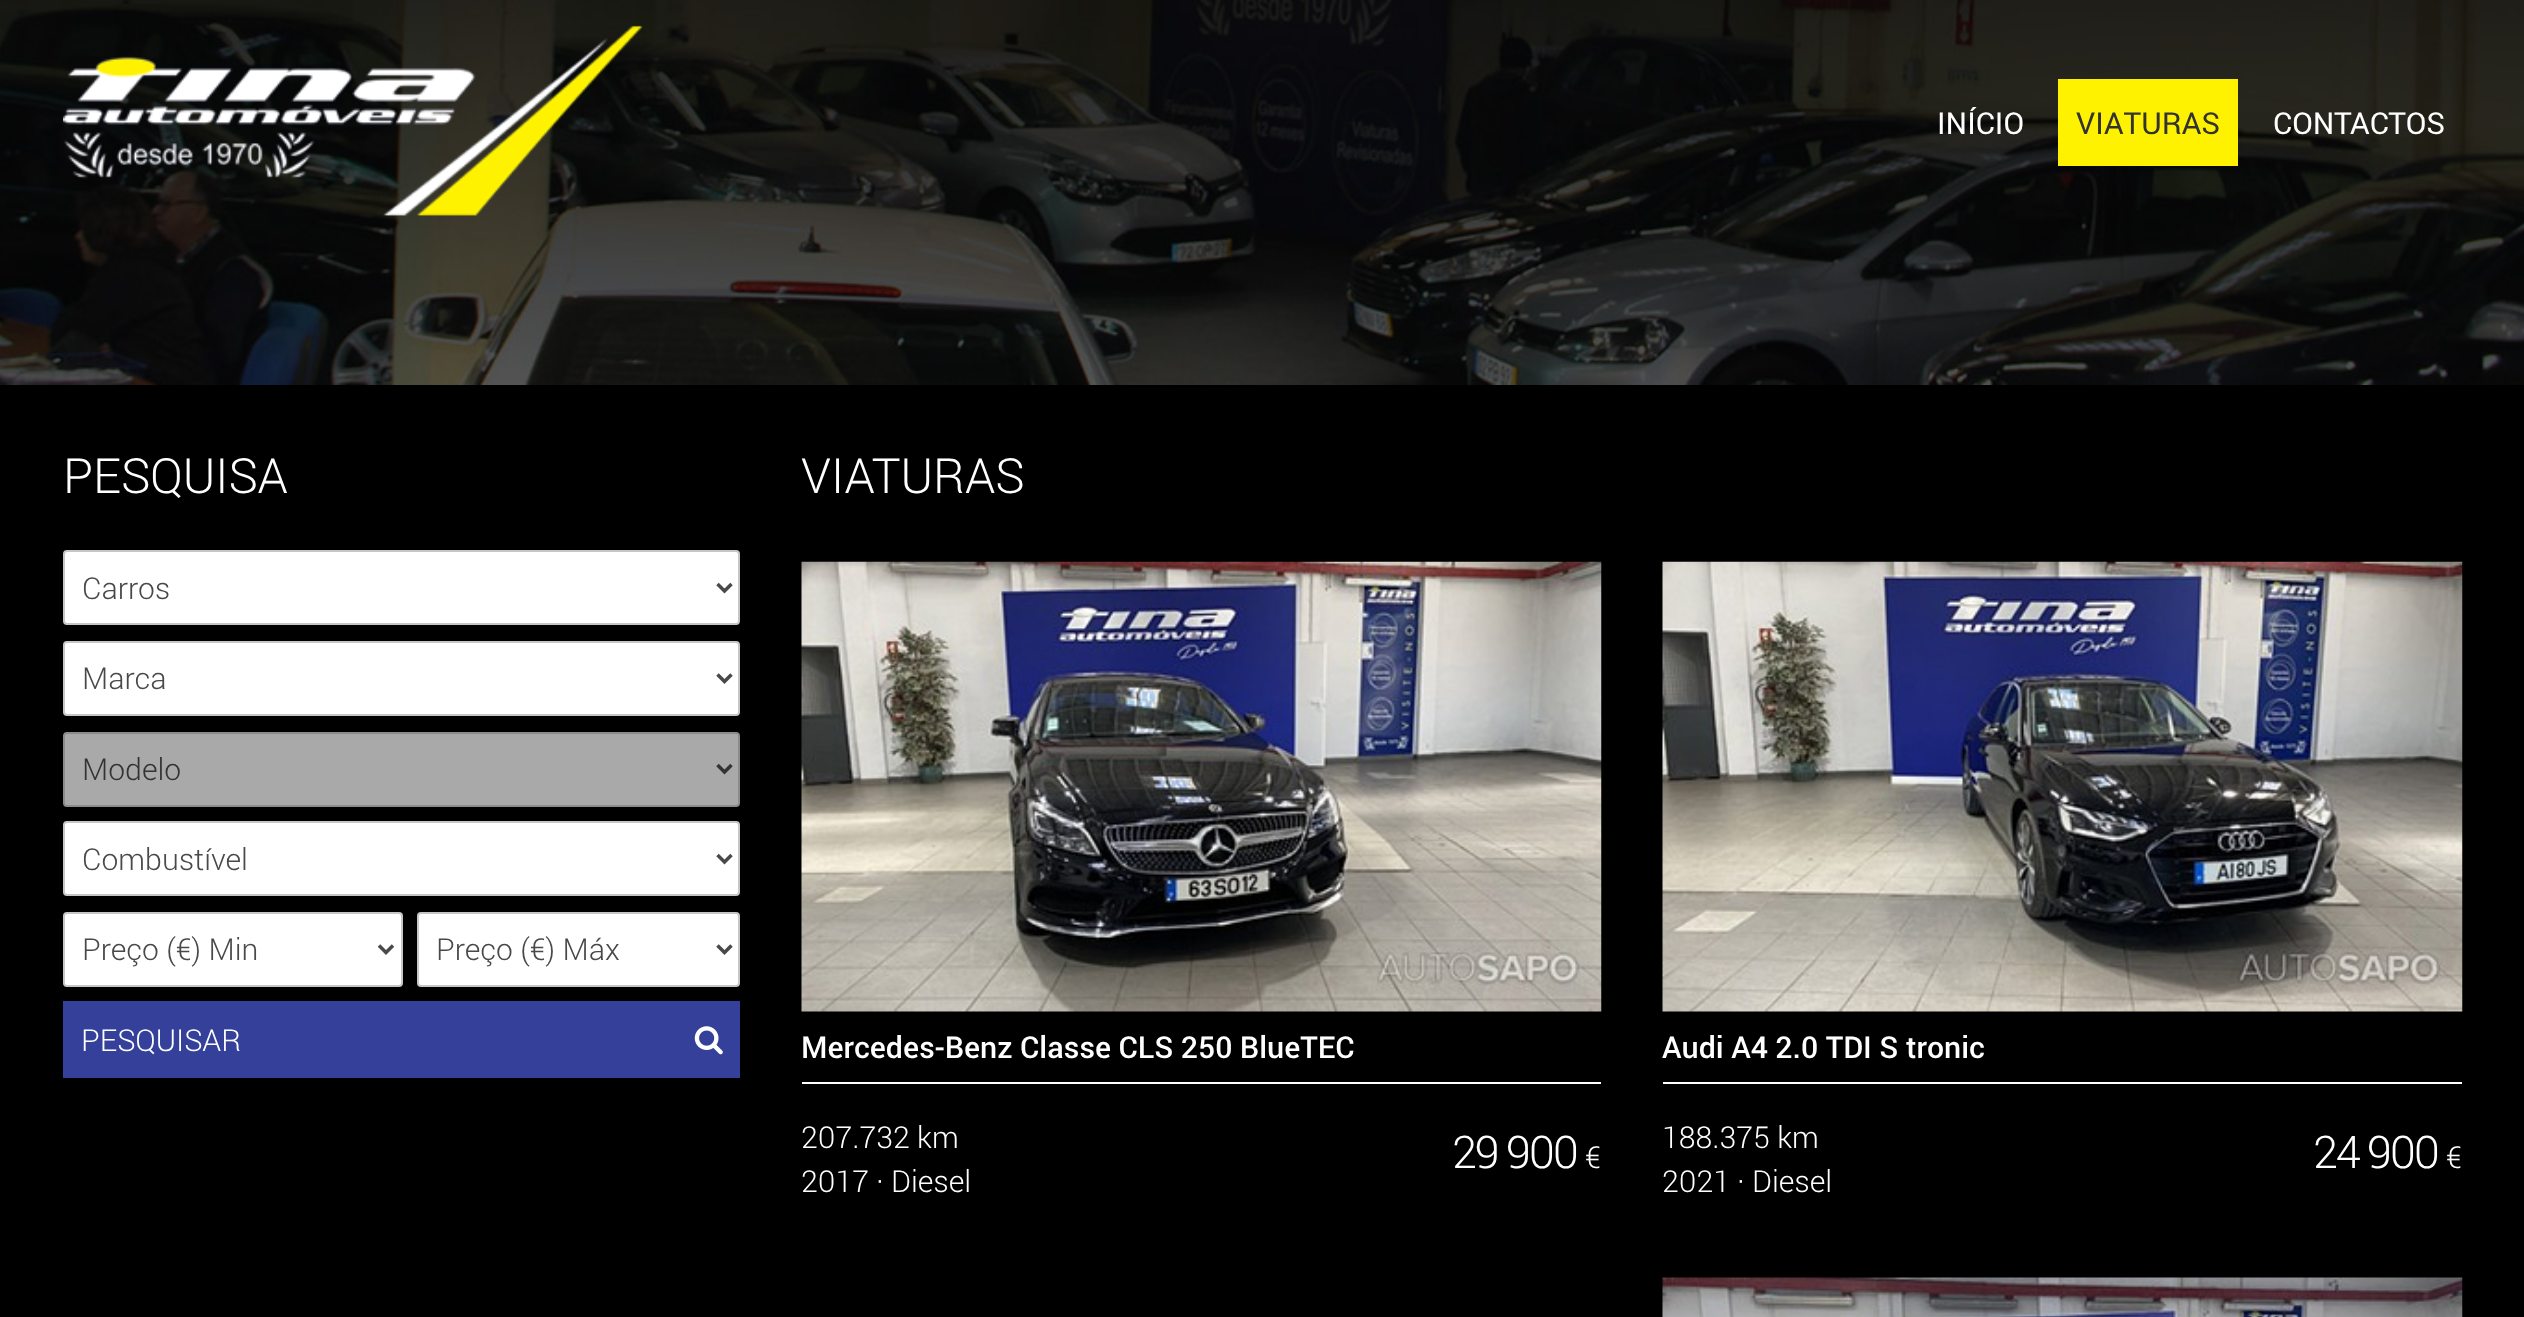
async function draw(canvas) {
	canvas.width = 2524;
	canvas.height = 1317;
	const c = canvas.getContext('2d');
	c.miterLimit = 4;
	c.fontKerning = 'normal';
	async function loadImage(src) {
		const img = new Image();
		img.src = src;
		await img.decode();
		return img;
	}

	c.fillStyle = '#000';
	c.fillRect(0, 0, 2524, 1317);
	c.drawImage(await loadImage('img1.png'), 0, 0, 2524, 385);
	c.drawImage(await loadImage('img2.png'), 63, 25, 580, 191);
	c.font = '30.25px Roboto';
	c.fillStyle = '#fff';
	c.fillText('INÍCIO', 1937, 134);
	c.fillStyle = '#fff200';
	c.fillRect(2058, 79, 180, 87);
	c.fillStyle = '#333';
	c.fillText('VIATURAS', 2076, 134);
	c.fillStyle = '#fff';
	c.fillText('CONTACTOS', 2273, 134);
	c.font = '300 48.5px Roboto';
	c.fillText('PESQUISA', 63, 493);
	c.beginPath();
	c.roundRect(64, 551, 675, 73, 3);
	c.fill();
	c.strokeStyle = '#c6c6c6';
	c.lineWidth = 2;
	c.stroke();
	c.beginPath();
	c.moveTo(717.5, 584);
	c.lineTo(724.5, 591);
	c.lineTo(731.5, 584);
	c.strokeStyle = '#494949';
	c.lineWidth = 3.5;
	c.stroke();
	c.font = '300 30.25px Roboto';
	c.fillStyle = '#494949';
	c.fillText('Carros', 82, 599);
	c.fillStyle = '#fff';
	c.beginPath();
	c.roundRect(64, 642, 675, 73, 3);
	c.fill();
	c.strokeStyle = '#c6c6c6';
	c.lineWidth = 2;
	c.stroke();
	c.beginPath();
	c.moveTo(717.5, 674.5);
	c.lineTo(724.5, 681.5);
	c.lineTo(731.5, 674.5);
	c.strokeStyle = '#494949';
	c.lineWidth = 3.5;
	c.stroke();
	c.fillStyle = '#494949';
	c.fillText('Marca', 82, 689);
	c.fillStyle = '#a9a9a9';
	c.beginPath();
	c.roundRect(64, 733, 675, 73, 3);
	c.fill();
	c.strokeStyle = '#8b8b8b';
	c.lineWidth = 2;
	c.stroke();
	c.beginPath();
	c.moveTo(717.5, 765);
	c.lineTo(724.5, 772);
	c.lineTo(731.5, 765);
	c.strokeStyle = '#333';
	c.lineWidth = 3.5;
	c.stroke();
	c.fillStyle = '#333';
	c.fillText('Modelo', 82, 780);
	c.fillStyle = '#fff';
	c.beginPath();
	c.roundRect(64, 822, 675, 73, 3);
	c.fill();
	c.strokeStyle = '#c6c6c6';
	c.lineWidth = 2;
	c.stroke();
	c.beginPath();
	c.moveTo(717.5, 855);
	c.lineTo(724.5, 862);
	c.lineTo(731.5, 855);
	c.strokeStyle = '#494949';
	c.lineWidth = 3.5;
	c.stroke();
	c.fillStyle = '#494949';
	c.fillText('Combustível', 82, 870);
	c.fillStyle = '#fff';
	c.beginPath();
	c.roundRect(64, 913, 338, 73, 3);
	c.fill();
	c.strokeStyle = '#c6c6c6';
	c.lineWidth = 2;
	c.stroke();
	c.beginPath();
	c.moveTo(379, 945.5);
	c.lineTo(386, 952.5);
	c.lineTo(393, 945.5);
	c.strokeStyle = '#494949';
	c.lineWidth = 3.5;
	c.stroke();
	c.fillStyle = '#494949';
	c.fillText('Preço (€) Min', 82, 960);
	c.fillStyle = '#fff';
	c.beginPath();
	c.roundRect(418, 913, 321, 73, 3);
	c.fill();
	c.strokeStyle = '#c6c6c6';
	c.lineWidth = 2;
	c.stroke();
	c.beginPath();
	c.moveTo(717.5, 945.5);
	c.lineTo(724.5, 952.5);
	c.lineTo(731.5, 945.5);
	c.strokeStyle = '#494949';
	c.lineWidth = 3.5;
	c.stroke();
	c.fillStyle = '#494949';
	c.fillText('Preço (€) Máx', 436, 960);
	c.fillStyle = '#344099';
	c.fillRect(63, 1001, 677, 77);
	c.fillStyle = '#fff';
	c.fillText('PESQUISAR', 81, 1051);
	c.drawImage(await loadImage('img3.png'), 694, 1026, 29, 29);
	c.font = '300 48.5px Roboto';
	c.fillText('VIATURAS', 801, 493);
	c.drawImage(await loadImage('img4.png'), 801, 561, 801, 451);
	c.fillRect(802, 1082, 799, 2);
	c.font = '500 30.25px Roboto';
	c.fillText('Mercedes-Benz Classe CLS 250 BlueTEC', 801, 1058);
	c.font = '300 30.25px Roboto';
	c.fillText('207.732 km', 801, 1148);
	c.fillText('2017 · Diesel', 801, 1192);
	c.letterSpacing = '-2.25px';
	c.font = '300 45px Roboto';
	c.fillText('29 900', 1452, 1168);
	c.letterSpacing = '0px';
	c.font = '300 30.25px Roboto';
	c.fillText('€', 1585, 1168);
	c.drawImage(await loadImage('img5.png'), 1662, 561, 801, 451);
	c.fillRect(1663, 1082, 799, 2);
	c.font = '500 30.25px Roboto';
	c.fillText('Audi A4 2.0 TDI S tronic', 1662, 1058);
	c.font = '300 30.25px Roboto';
	c.fillText('188.375 km', 1662, 1148);
	c.fillText('2021 · Diesel', 1662, 1192);
	c.letterSpacing = '-2.25px';
	c.font = '300 45px Roboto';
	c.fillText('24 900', 2313, 1168);
	c.letterSpacing = '0px';
	c.font = '300 30.25px Roboto';
	c.fillText('€', 2446, 1168);
	c.drawImage(await loadImage('img6.png'), 1662, 1277, 801, 40);
}

draw(document.querySelector('canvas'));
